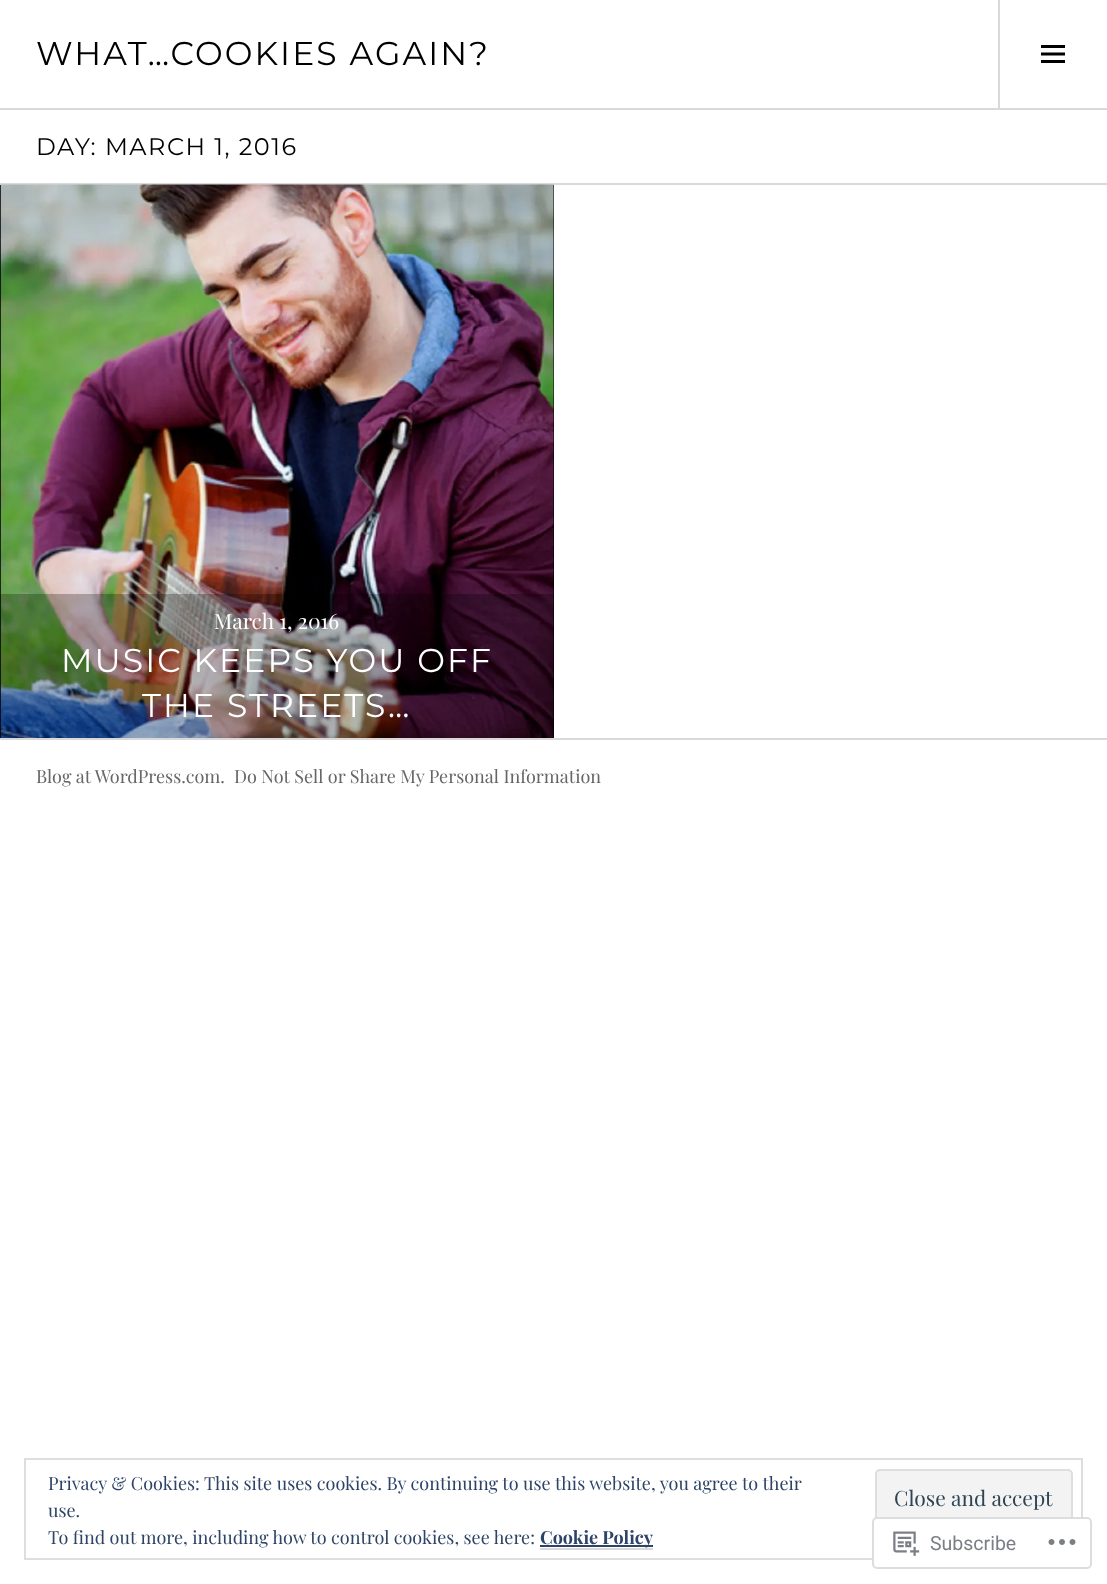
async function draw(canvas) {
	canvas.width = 1107;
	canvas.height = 1584;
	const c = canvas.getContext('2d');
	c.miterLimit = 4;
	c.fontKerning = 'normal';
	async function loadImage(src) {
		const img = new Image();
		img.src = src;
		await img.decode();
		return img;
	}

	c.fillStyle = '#fff';
	c.fillRect(0, 0, 1107, 1584);
	c.fillStyle = '#d9d9d9';
	c.fillRect(0, 108, 1107, 2);
	c.letterSpacing = '2.1px';
	c.font = '33px Montserrat';
	c.fillStyle = '#000';
	c.fillText('WHAT…COOKIES AGAIN?', 36, 65);
	c.fillStyle = '#d9d9d9';
	c.fillRect(998, 0, 2, 108);
	c.drawImage(await loadImage('img1.png'), 1041, 45, 24, 18);
	c.fillRect(0, 183, 1107, 2);
	c.letterSpacing = '1.5px';
	c.font = '24px Montserrat';
	c.fillStyle = '#000';
	c.fillText('DAY: MARCH 1, 2016', 36, 155);
	c.fillRect(0, 185, 554, 553);
	c.drawImage(await loadImage('img2.png'), 0, 184, 554, 554);
	c.fillStyle = '#00000040';
	c.fillRect(0, 594, 554, 144);
	c.letterSpacing = '0px';
	c.font = '21px Playfair Display';
	c.fillStyle = '#fff';
	c.fillText('March 1, 2016', 214, 629);
	c.letterSpacing = '2.1px';
	c.font = '33px Montserrat';
	c.fillText('MUSIC KEEPS YOU OFF', 61, 672);
	c.fillText('THE STREETS…', 142, 717);
	c.fillStyle = '#d9d9d9';
	c.fillRect(0, 738, 1107, 2);
	c.letterSpacing = '0px';
	c.font = '18px Playfair Display';
	c.fillStyle = '#666';
	c.fillText('Blog at WordPress.com.', 36, 783);
	c.fillText('Do Not Sell or Share My Personal Information', 234, 783);
	c.strokeStyle = '#dedede';
	c.lineWidth = 2;
	c.strokeRect(25, 1459, 1057, 100);
	c.fillStyle = '#2e4467';
	c.fillText('Privacy & Cookies: This site uses cookies. By continuing to use this website, you agree to their', 48, 1490);
	c.fillStyle = '#f3f3f3';
	c.beginPath();
	c.roundRect(876, 1470, 196, 56, 4);
	c.fill();
	c.stroke();
	c.font = '21px Playfair Display';
	c.fillStyle = '#2e4453';
	c.fillText('Close and accept', 894, 1506);
	c.font = '18px Playfair Display';
	c.fillStyle = '#2e4467';
	c.fillText('use.', 48, 1517);
	c.fillText('To find out more, including how to control cookies, see here:', 48, 1544);
	c.fillRect(540, 1545, 113, 2);
	c.font = 'bold 18px Playfair Display';
	c.fillText('Cookie Policy', 540, 1544);
	c.fillStyle = '#d9d9d9';
	c.fillRect(540, 1548, 113, 2);
	c.fillStyle = '#fffffffa';
	c.beginPath();
	c.roundRect(872, 1517, 220, 52, 5);
	c.fill();
	c.beginPath();
	c.roundRect(873, 1518, 218, 50, 4);
	c.strokeStyle = '#dcdcdefa';
	c.stroke();
	c.drawImage(await loadImage('img3.png'), 893, 1531, 27, 25);
	c.font = '19.5px Roboto';
	c.fillStyle = '#7b7f85';
	c.fillText('Subscribe', 930, 1550);
	c.drawImage(await loadImage('img4.png'), 1048, 1539, 28, 6);
}

draw(document.querySelector('canvas'));
